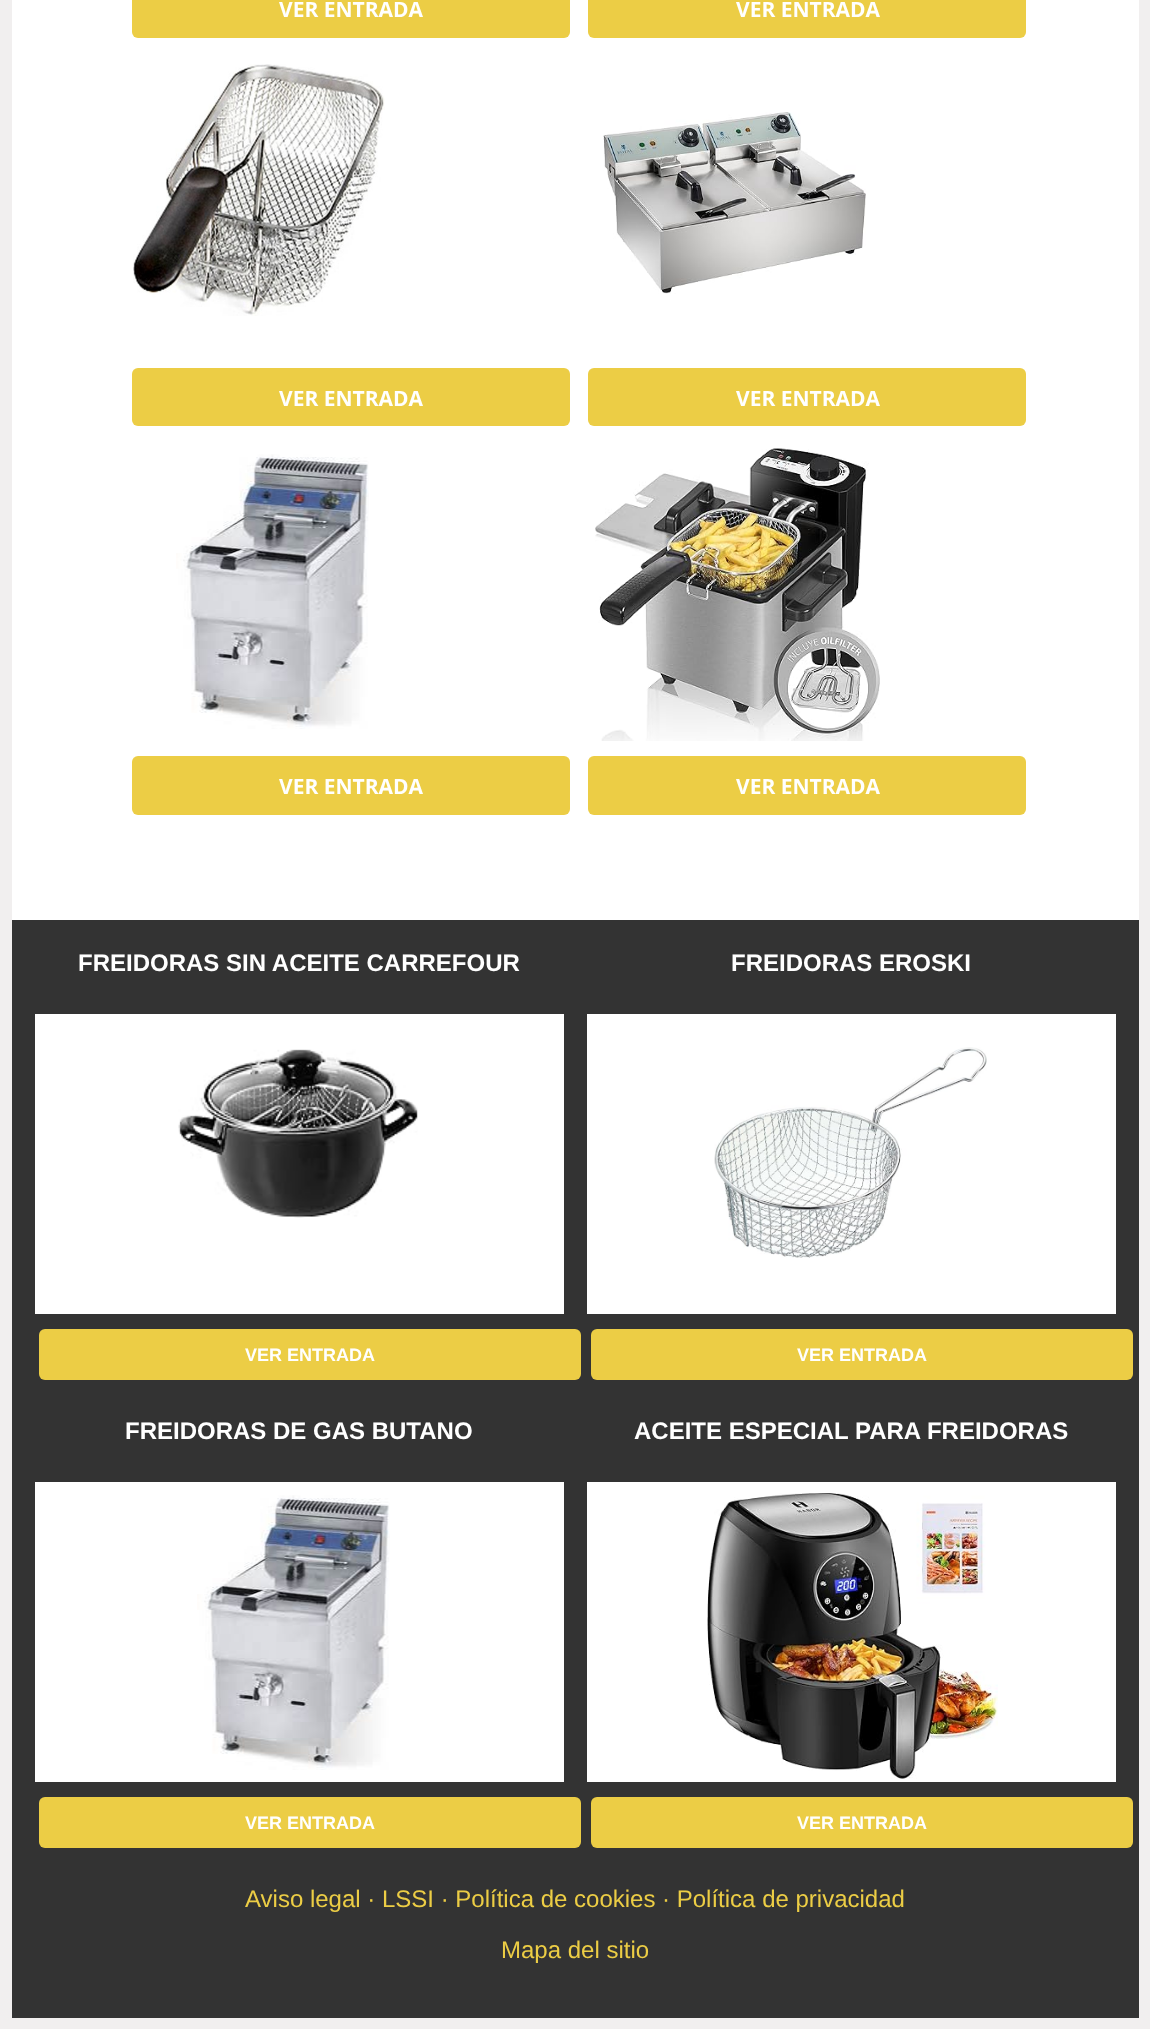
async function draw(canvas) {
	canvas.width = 1150;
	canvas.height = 2029;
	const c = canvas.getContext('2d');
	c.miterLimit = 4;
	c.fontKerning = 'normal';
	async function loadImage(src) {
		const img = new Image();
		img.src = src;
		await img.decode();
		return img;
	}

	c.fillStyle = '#f1efef';
	c.fillRect(0, 0, 1150, 2029);
	c.fillStyle = '#fff';
	c.fillRect(12, 0, 1127, 920);
	c.fillStyle = '#eccd45';
	c.beginPath();
	c.roundRect(132, -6, 438, 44, 6);
	c.fill();
	c.font = 'bold 21px Open Sans';
	c.fillStyle = '#fff';
	c.fillText('VER ENTRADA', 279, 17);
	c.fillStyle = '#eccd45';
	c.beginPath();
	c.roundRect(588, -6, 438, 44, 6);
	c.fill();
	c.fillStyle = '#fff';
	c.fillText('VER ENTRADA', 736, 17);
	c.drawImage(await loadImage('img1.png'), 133, 64, 252, 252);
	c.fillStyle = '#eccd45';
	c.beginPath();
	c.roundRect(132, 368, 438, 58, 6);
	c.fill();
	c.fillStyle = '#fff';
	c.fillText('VER ENTRADA', 279, 406);
	c.drawImage(await loadImage('img2.png'), 603, 112, 263, 182);
	c.fillStyle = '#eccd45';
	c.beginPath();
	c.roundRect(588, 368, 438, 58, 6);
	c.fill();
	c.fillStyle = '#fff';
	c.fillText('VER ENTRADA', 736, 406);
	c.drawImage(await loadImage('img3.png'), 176, 454, 193, 275);
	c.fillStyle = '#eccd45';
	c.beginPath();
	c.roundRect(132, 756, 438, 59, 6);
	c.fill();
	c.fillStyle = '#fff';
	c.fillText('VER ENTRADA', 279, 794);
	c.drawImage(await loadImage('img4.png'), 595, 448, 285, 293);
	c.fillStyle = '#eccd45';
	c.beginPath();
	c.roundRect(588, 756, 438, 59, 6);
	c.fill();
	c.fillStyle = '#fff';
	c.fillText('VER ENTRADA', 736, 794);
	c.fillStyle = '#333';
	c.fillRect(12, 920, 1127, 1098);
	c.font = 'bold 24px Liberation Sans';
	c.fillStyle = '#fff';
	c.fillText('FREIDORAS SIN ACEITE CARREFOUR', 78, 971);
	c.fillRect(35, 1014, 529, 300);
	c.drawImage(await loadImage('img5.png'), 178, 1049, 240, 169);
	c.fillStyle = '#eccd45';
	c.beginPath();
	c.roundRect(39, 1329, 542, 51, 6);
	c.fill();
	c.font = 'bold 18px Liberation Sans';
	c.fillStyle = '#fff';
	c.fillText('VER ENTRADA', 245, 1361);
	c.font = 'bold 24px Liberation Sans';
	c.fillText('FREIDORAS EROSKI', 731, 971);
	c.fillRect(587, 1014, 529, 300);
	c.drawImage(await loadImage('img6.png'), 714, 1047, 273, 211);
	c.fillStyle = '#eccd45';
	c.beginPath();
	c.roundRect(591, 1329, 542, 51, 6);
	c.fill();
	c.font = 'bold 18px Liberation Sans';
	c.fillStyle = '#fff';
	c.fillText('VER ENTRADA', 797, 1361);
	c.font = 'bold 24px Liberation Sans';
	c.fillText('FREIDORAS DE GAS BUTANO', 125, 1439);
	c.fillRect(35, 1482, 529, 300);
	c.drawImage(await loadImage('img3.png'), 197, 1495, 193, 275);
	c.fillStyle = '#eccd45';
	c.beginPath();
	c.roundRect(39, 1797, 542, 51, 6);
	c.fill();
	c.font = 'bold 18px Liberation Sans';
	c.fillStyle = '#fff';
	c.fillText('VER ENTRADA', 245, 1829);
	c.font = 'bold 24px Liberation Sans';
	c.fillText('ACEITE ESPECIAL PARA FREIDORAS', 634, 1439);
	c.fillRect(587, 1482, 529, 300);
	c.drawImage(await loadImage('img7.png'), 707, 1493, 291, 286);
	c.fillStyle = '#eccd45';
	c.beginPath();
	c.roundRect(591, 1797, 542, 51, 6);
	c.fill();
	c.font = 'bold 18px Liberation Sans';
	c.fillStyle = '#fff';
	c.fillText('VER ENTRADA', 797, 1829);
	c.font = '24px Liberation Sans';
	c.fillStyle = '#eccd45';
	c.fillText('Aviso legal · LSSI · Política de cookies · Política de privacidad', 245, 1907);
	c.fillText('Mapa del sitio', 501, 1958);
}

draw(document.querySelector('canvas'));
